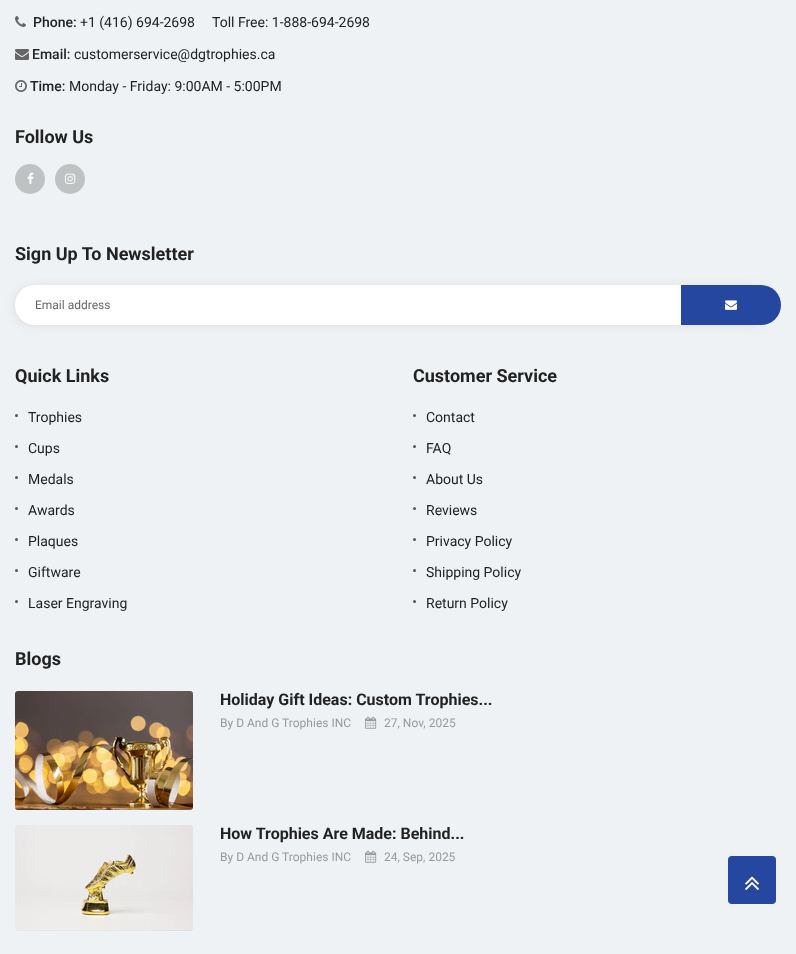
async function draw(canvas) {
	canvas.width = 796;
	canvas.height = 954;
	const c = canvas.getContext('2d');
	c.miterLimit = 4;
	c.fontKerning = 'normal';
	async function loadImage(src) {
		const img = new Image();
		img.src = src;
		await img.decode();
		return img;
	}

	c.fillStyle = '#eff2f4';
	c.fillRect(0, 0, 796, 954);
	c.drawImage(await loadImage('img1.png'), 15, 16, 11, 11);
	c.font = '500 14px Roboto';
	c.fillStyle = '#222';
	c.fillText('Phone:', 33, 27);
	c.font = '14px Roboto';
	c.fillText('+1 (416) 694-2698', 80, 27);
	c.fillText('Toll Free: 1-888-694-2698', 212, 27);
	c.drawImage(await loadImage('img2.png'), 15, 49, 14, 11);
	c.font = '500 14px Roboto';
	c.fillText('Email:', 32, 59);
	c.font = '14px Roboto';
	c.fillText('customerservice@dgtrophies.ca', 74, 59);
	c.drawImage(await loadImage('img3.png'), 15, 80, 12, 12);
	c.font = '500 14px Roboto';
	c.fillText('Time:', 30, 91);
	c.font = '14px Roboto';
	c.fillText('Monday - Friday: 9:00AM - 5:00PM', 69, 91);
	c.font = 'bold 18px Roboto';
	c.fillText('Follow Us', 15, 143);
	c.fillStyle = '#bfc2c3';
	c.beginPath();
	c.arc(30, 179, 15, 0, 2 * Math.PI);
	c.fill();
	c.drawImage(await loadImage('img4.png'), 27, 172, 7, 12);
	c.beginPath();
	c.arc(70, 179, 15, 0, 2 * Math.PI);
	c.fill();
	c.drawImage(await loadImage('img5.png'), 65, 173, 11, 11);
	c.fillStyle = '#222';
	c.fillText('Sign Up To Newsletter', 15, 260);
	c.fillStyle = '#ddd';
	c.filter = 'blur(4.5px)';
	c.beginPath();
	c.roundRect(14, 286, 758, 40, 20);
	c.fill();
	c.filter = 'none';
	c.fillStyle = '#fff';
	c.beginPath();
	c.roundRect(15, 285, 758, 40, 20);
	c.fill();
	c.font = '12px Roboto';
	c.fillStyle = '#666';
	c.fillText('Email address', 35, 309);
	c.fillStyle = '#2547a0';
	c.beginPath();
	c.roundRect(681, 285, 100, 40, [0, 20, 20, 0]);
	c.fill();
	c.drawImage(await loadImage('img6.png'), 725, 300, 12, 10);
	c.font = 'bold 18px Roboto';
	c.fillStyle = '#222';
	c.fillText('Quick Links', 15, 382);
	c.fillStyle = '#555';
	c.beginPath();
	c.arc(16.5, 415.5, 1.5, 0, 2 * Math.PI);
	c.fill();
	c.font = '14px Roboto';
	c.fillStyle = '#222';
	c.fillText('Trophies', 28, 422);
	c.fillStyle = '#555';
	c.beginPath();
	c.arc(16.5, 446.5, 1.5, 0, 2 * Math.PI);
	c.fill();
	c.fillStyle = '#222';
	c.fillText('Cups', 28, 453);
	c.fillStyle = '#555';
	c.beginPath();
	c.arc(16.5, 477.5, 1.5, 0, 2 * Math.PI);
	c.fill();
	c.fillStyle = '#222';
	c.fillText('Medals', 28, 484);
	c.fillStyle = '#555';
	c.beginPath();
	c.arc(16.5, 508.5, 1.5, 0, 2 * Math.PI);
	c.fill();
	c.fillStyle = '#222';
	c.fillText('Awards', 28, 515);
	c.fillStyle = '#555';
	c.beginPath();
	c.arc(16.5, 539.5, 1.5, 0, 2 * Math.PI);
	c.fill();
	c.fillStyle = '#222';
	c.fillText('Plaques', 28, 546);
	c.fillStyle = '#555';
	c.beginPath();
	c.arc(16.5, 570.5, 1.5, 0, 2 * Math.PI);
	c.fill();
	c.fillStyle = '#222';
	c.fillText('Giftware', 28, 577);
	c.fillStyle = '#555';
	c.beginPath();
	c.arc(16.5, 601.5, 1.5, 0, 2 * Math.PI);
	c.fill();
	c.fillStyle = '#222';
	c.fillText('Laser Engraving', 28, 608);
	c.font = 'bold 18px Roboto';
	c.fillText('Customer Service', 413, 382);
	c.fillStyle = '#555';
	c.beginPath();
	c.arc(414.5, 415.5, 1.5, 0, 2 * Math.PI);
	c.fill();
	c.font = '14px Roboto';
	c.fillStyle = '#222';
	c.fillText('Contact', 426, 422);
	c.fillStyle = '#555';
	c.beginPath();
	c.arc(414.5, 446.5, 1.5, 0, 2 * Math.PI);
	c.fill();
	c.fillStyle = '#222';
	c.fillText('FAQ', 426, 453);
	c.fillStyle = '#555';
	c.beginPath();
	c.arc(414.5, 477.5, 1.5, 0, 2 * Math.PI);
	c.fill();
	c.fillStyle = '#222';
	c.fillText('About Us', 426, 484);
	c.fillStyle = '#555';
	c.beginPath();
	c.arc(414.5, 508.5, 1.5, 0, 2 * Math.PI);
	c.fill();
	c.fillStyle = '#222';
	c.fillText('Reviews', 426, 515);
	c.fillStyle = '#555';
	c.beginPath();
	c.arc(414.5, 539.5, 1.5, 0, 2 * Math.PI);
	c.fill();
	c.fillStyle = '#222';
	c.fillText('Privacy Policy', 426, 546);
	c.fillStyle = '#555';
	c.beginPath();
	c.arc(414.5, 570.5, 1.5, 0, 2 * Math.PI);
	c.fill();
	c.fillStyle = '#222';
	c.fillText('Shipping Policy', 426, 577);
	c.fillStyle = '#555';
	c.beginPath();
	c.arc(414.5, 601.5, 1.5, 0, 2 * Math.PI);
	c.fill();
	c.fillStyle = '#222';
	c.fillText('Return Policy', 426, 608);
	c.font = 'bold 18px Roboto';
	c.fillText('Blogs', 15, 665);
	c.drawImage(await loadImage('img7.png'), 15, 691, 178, 119);
	c.font = 'bold 16px Roboto';
	c.fillText('Holiday Gift Ideas: Custom Trophies...', 220, 705);
	c.font = '12px Roboto';
	c.fillStyle = '#999';
	c.fillText('By D And G Trophies INC', 220, 727);
	c.drawImage(await loadImage('img8.png'), 365, 716, 12, 13);
	c.fillText('27, Nov, 2025', 384, 727);
	c.drawImage(await loadImage('img9.png'), 15, 825, 178, 106);
	c.font = 'bold 16px Roboto';
	c.fillStyle = '#222';
	c.fillText('How Trophies Are Made: Behind...', 220, 839);
	c.font = '12px Roboto';
	c.fillStyle = '#999';
	c.fillText('By D And G Trophies INC', 220, 861);
	c.drawImage(await loadImage('img8.png'), 365, 850, 12, 13);
	c.fillText('24, Sep, 2025', 384, 861);
	c.fillStyle = '#2547a0';
	c.beginPath();
	c.roundRect(728, 856, 48, 48, 4);
	c.fill();
	c.drawImage(await loadImage('img10.png'), 745, 876, 14, 14);
}

draw(document.querySelector('canvas'));
